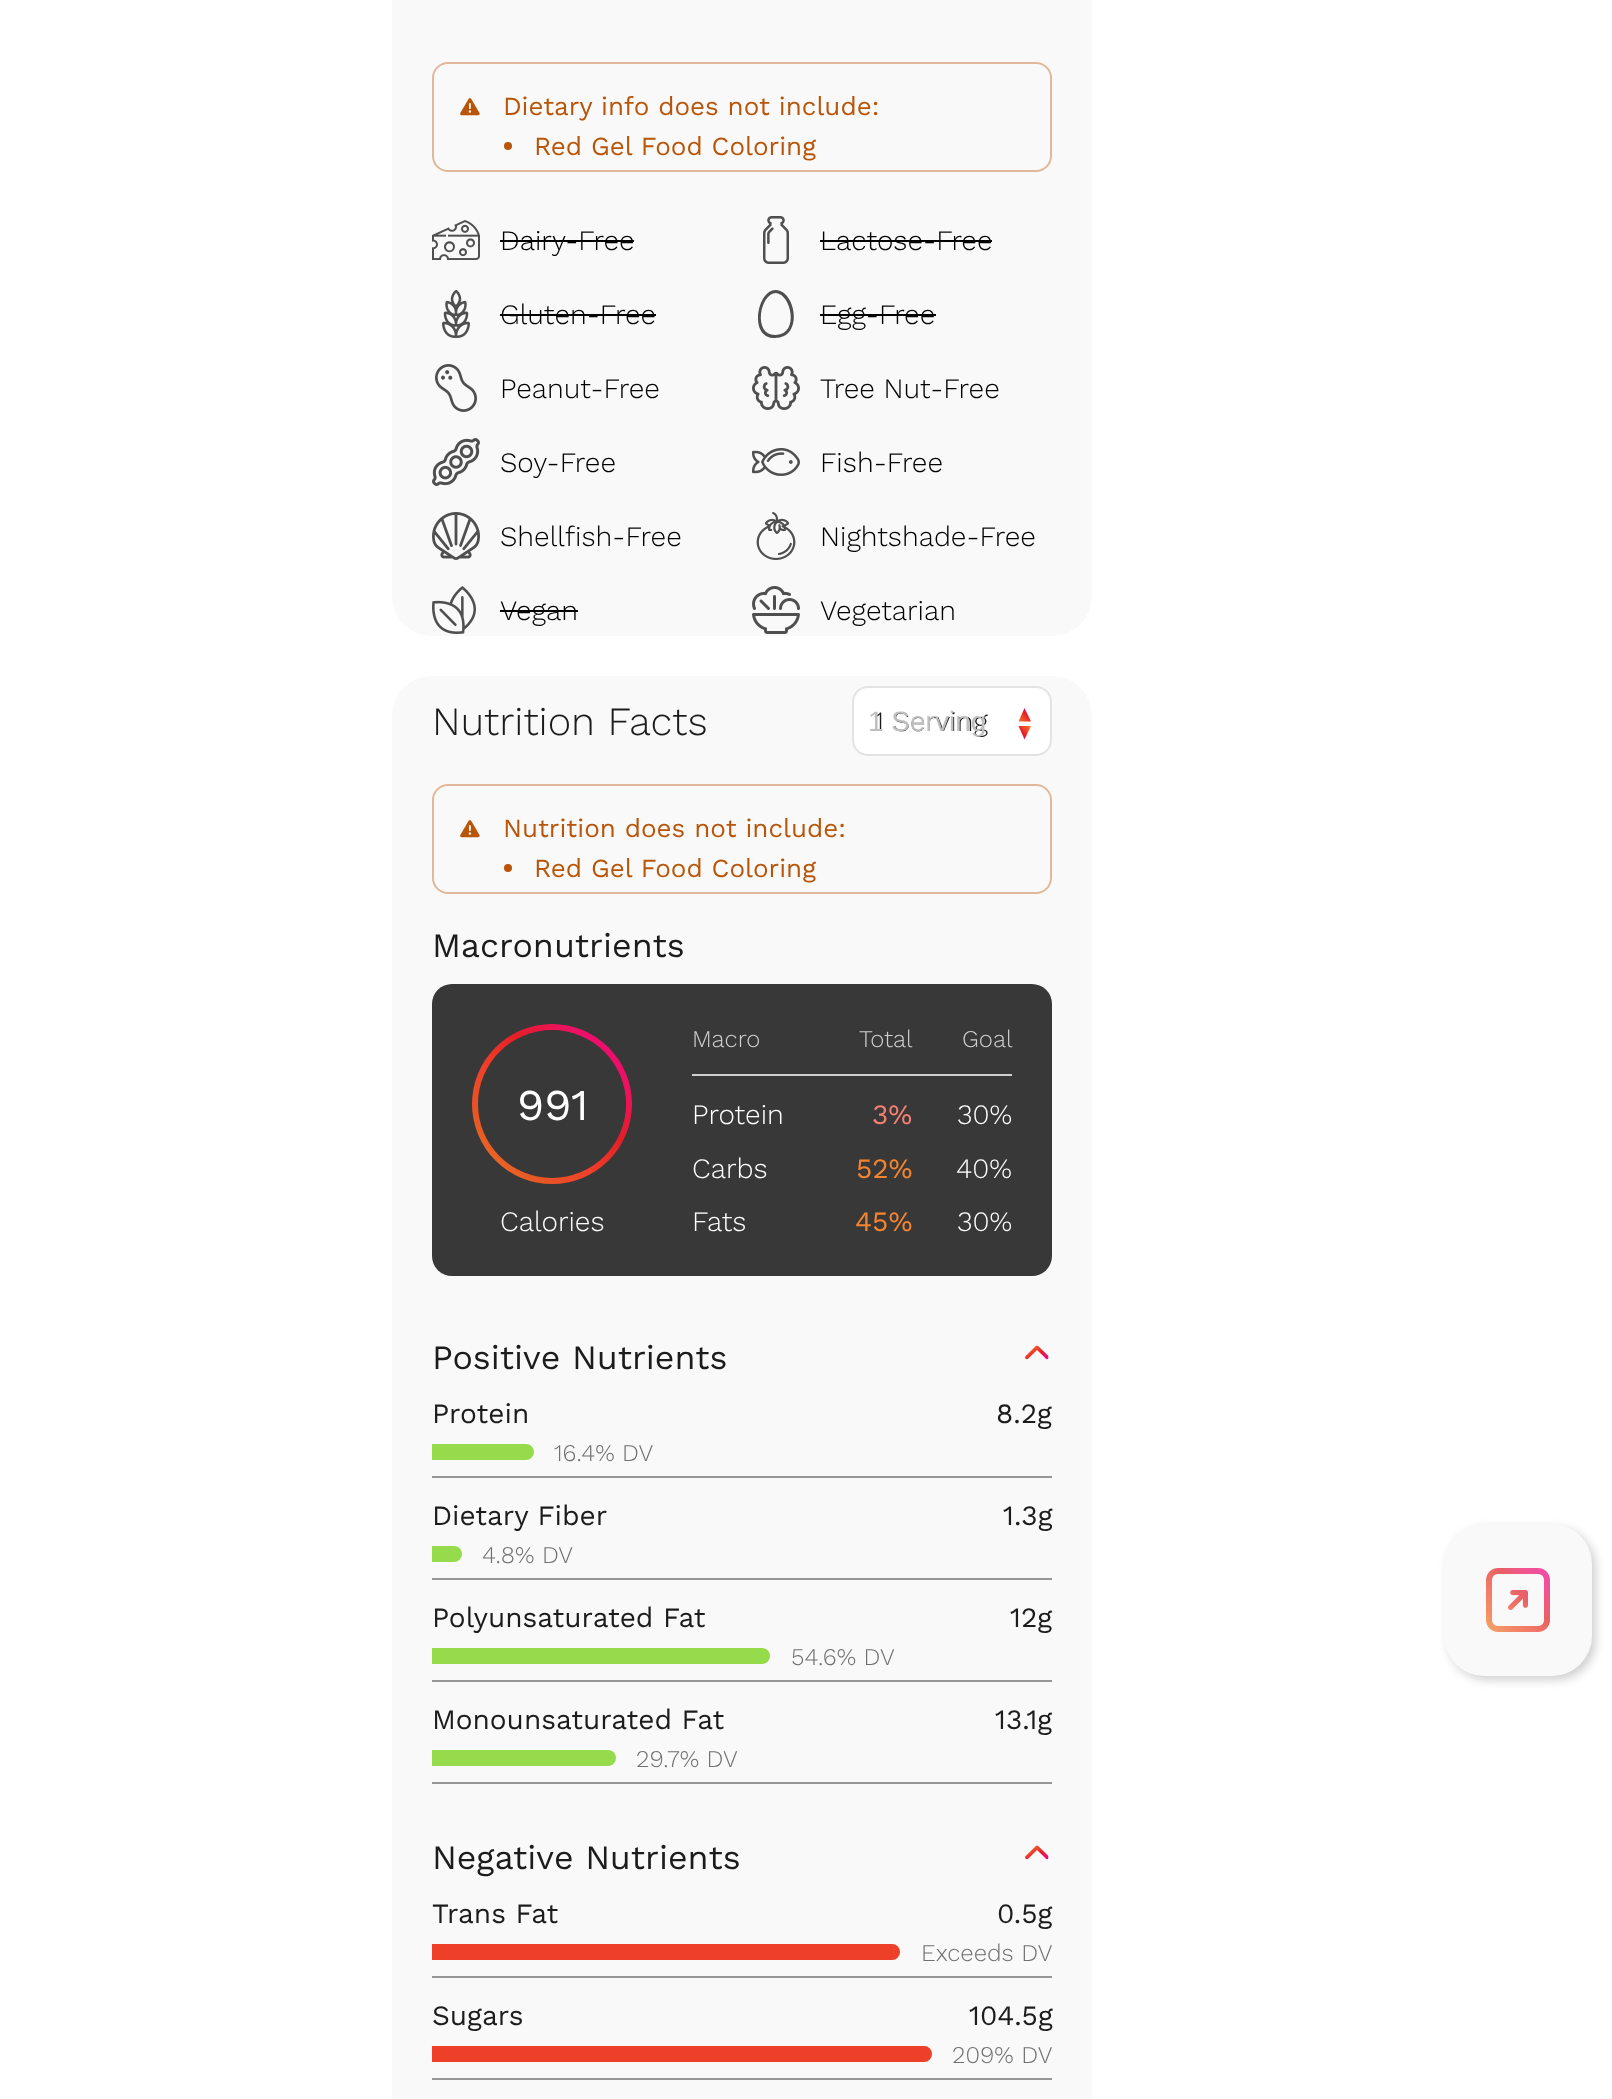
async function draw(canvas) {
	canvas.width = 1612;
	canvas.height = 2099;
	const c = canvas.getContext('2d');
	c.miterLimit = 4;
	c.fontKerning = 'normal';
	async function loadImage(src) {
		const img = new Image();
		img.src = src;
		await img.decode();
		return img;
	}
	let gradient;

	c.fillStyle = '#fff';
	c.fillRect(0, 0, 1612, 2099);
	c.fillStyle = '#f9f9f9';
	c.beginPath();
	c.roundRect(392, -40, 700, 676, 40);
	c.fill();
	c.beginPath();
	c.roundRect(433, 63, 618, 108, 15);
	c.strokeStyle = '#e1b899';
	c.lineWidth = 2;
	c.stroke();
	c.drawImage(await loadImage('img1.png'), 460, 98, 20, 18);
	c.font = '26px Work Sans';
	c.fillStyle = '#b95509';
	c.fillText('Dietary info does not include:', 503, 115);
	c.beginPath();
	c.arc(508, 146, 4, 0, 2 * Math.PI);
	c.fill();
	c.fillText('Red Gel Food Coloring', 534, 155);
	c.drawImage(await loadImage('img2.png'), 432, 220, 48, 40);
	c.font = '300 28px Work Sans';
	c.fillStyle = '#000';
	c.fillText('Dairy-Free', 500, 250);
	c.fillRect(500, 240, 134, 2);
	c.drawImage(await loadImage('img3.png'), 763, 216, 26, 48);
	c.fillText('Lactose-Free', 820, 250);
	c.fillRect(820, 240, 172, 2);
	c.drawImage(await loadImage('img4.png'), 442, 290, 28, 48);
	c.fillText('Gluten-Free', 500, 324);
	c.fillRect(500, 314, 156, 2);
	c.fillStyle = '#4f4f4f';
	c.beginPath();
	c.moveTo(775, 338);
	c.bezierCurveTo(748, 339, 757, 289, 776, 290);
	c.bezierCurveTo(796, 291, 804, 338, 775, 338);
	c.closePath();
	c.moveTo(776, 293);
	c.bezierCurveTo(760, 293, 752, 336, 776, 335);
	c.bezierCurveTo(800, 334, 791, 294, 776, 293);
	c.closePath();
	c.fill();
	c.fillStyle = '#000';
	c.fillText('Egg-Free', 820, 324);
	c.fillRect(820, 314, 116, 2);
	c.drawImage(await loadImage('img5.png'), 435, 364, 42, 48);
	c.fillText('Peanut-Free', 500, 398);
	c.drawImage(await loadImage('img6.png'), 752, 366, 48, 44);
	c.fillText('Tree Nut-Free', 820, 398);
	c.drawImage(await loadImage('img7.png'), 432, 438, 48, 48);
	c.fillText('Soy-Free', 500, 472);
	c.drawImage(await loadImage('img8.png'), 752, 448, 48, 28);
	c.fillText('Fish-Free', 820, 472);
	c.drawImage(await loadImage('img9.png'), 432, 512, 48, 48);
	c.fillText('Shellfish-Free', 500, 546);
	c.drawImage(await loadImage('img10.png'), 756, 512, 40, 48);
	c.fillText('Nightshade-Free', 820, 546);
	c.drawImage(await loadImage('img11.png'), 432, 586, 44, 48);
	c.fillText('Vegan', 500, 620);
	c.fillRect(500, 610, 78, 2);
	c.drawImage(await loadImage('img12.png'), 752, 586, 48, 48);
	c.fillText('Vegetarian', 820, 620);
	c.fillStyle = '#f9f9f9';
	c.beginPath();
	c.roundRect(392, 676, 700, 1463, 40);
	c.fill();
	c.font = '300 40px Work Sans';
	c.fillStyle = '#1c1c1c';
	c.fillText('Nutrition Facts', 432, 735);
	c.fillStyle = '#fff';
	c.beginPath();
	c.roundRect(853, 687, 198, 68, 15);
	c.fill();
	c.strokeStyle = '#e3e3e3';
	c.stroke();
	c.font = '300 28px Work Sans';
	c.fillStyle = '#1c1c1c';
	c.fillText('1 Serving', 874, 731);
	c.font = '28px Liberation Sans';
	c.fillStyle = '#bebebe';
	c.fillText('1 Serving', 868, 731);
	gradient = c.createLinearGradient(1018, 722, 1032, 709);
	gradient.addColorStop(0, '#f58229');
	gradient.addColorStop(0.2, '#f25c29');
	gradient.addColorStop(0.39, '#ef4129');
	gradient.addColorStop(0.58, '#e31f26');
	gradient.addColorStop(0.78, '#ed1164');
	gradient.addColorStop(1, '#ec008c');
	c.fillStyle = gradient;
	c.beginPath();
	c.moveTo(1024.5, 708);
	c.lineTo(1018.5, 721.5);
	c.lineTo(1031, 721.5);
	c.closePath();
	c.fill();
	gradient = c.createLinearGradient(1031, 726, 1017, 738);
	gradient.addColorStop(0, '#f58229');
	gradient.addColorStop(0.2, '#f25c29');
	gradient.addColorStop(0.39, '#ef4129');
	gradient.addColorStop(0.58, '#e31f26');
	gradient.addColorStop(0.78, '#ed1164');
	gradient.addColorStop(1, '#ec008c');
	c.fillStyle = gradient;
	c.beginPath();
	c.moveTo(1024.5, 739.5);
	c.lineTo(1031, 726);
	c.lineTo(1018.5, 726);
	c.closePath();
	c.fill();
	c.beginPath();
	c.roundRect(433, 785, 618, 108, 15);
	c.strokeStyle = '#e1b899';
	c.stroke();
	c.drawImage(await loadImage('img1.png'), 460, 820, 20, 18);
	c.font = '26px Work Sans';
	c.fillStyle = '#b95509';
	c.fillText('Nutrition does not include:', 503, 837);
	c.beginPath();
	c.arc(508, 868, 4, 0, 2 * Math.PI);
	c.fill();
	c.fillText('Red Gel Food Coloring', 534, 877);
	c.font = '34px Work Sans';
	c.fillStyle = '#1c1c1c';
	c.fillText('Macronutrients', 432, 957);
	c.fillStyle = '#383838';
	c.beginPath();
	c.roundRect(432, 984, 620, 292, 20);
	c.fill();
	gradient = c.createLinearGradient(472, 1184, 632, 1024);
	gradient.addColorStop(0, '#f58229');
	gradient.addColorStop(0.2, '#e65925');
	gradient.addColorStop(0.4, '#ef4129');
	gradient.addColorStop(0.6, '#e31f26');
	gradient.addColorStop(0.8, '#ed1164');
	gradient.addColorStop(1, '#ec008c');
	c.fillStyle = gradient;
	c.beginPath();
	c.arc(552, 1104, 80, 0, 2 * Math.PI);
	c.fill();
	c.fillStyle = '#383838';
	c.beginPath();
	c.arc(552, 1104, 74, 0, 2 * Math.PI);
	c.fill();
	c.font = '44px Work Sans';
	c.fillStyle = '#fff';
	c.fillText('991', 517, 1120);
	c.font = '300 28px Work Sans';
	c.fillText('Calories', 500, 1231);
	c.font = '300 24px Work Sans';
	c.fillStyle = '#cfcfcf';
	for (const [text, x, y] of [
		['Macro', 692, 1047],
		['Total', 859, 1047],
		['Goal', 962, 1047],
	]) {
		c.fillText(text, x, y);
	}
	c.fillRect(692, 1074, 320, 2);
	c.font = '300 28px Work Sans';
	c.fillStyle = '#fff';
	c.fillText('Protein', 692, 1124);
	c.font = '28px Work Sans';
	c.fillStyle = '#f48071';
	c.fillText('3%', 872, 1124);
	c.font = '300 28px Work Sans';
	c.fillStyle = '#fff';
	c.fillText('30%', 957, 1124);
	c.fillText('Carbs', 692, 1178);
	c.font = '28px Work Sans';
	c.fillStyle = '#f4842f';
	c.fillText('52%', 856, 1178);
	c.font = '300 28px Work Sans';
	c.fillStyle = '#fff';
	c.fillText('40%', 956, 1178);
	c.fillText('Fats', 692, 1231);
	c.font = '28px Work Sans';
	c.fillStyle = '#f4842f';
	c.fillText('45%', 855, 1231);
	c.font = '300 28px Work Sans';
	c.fillStyle = '#fff';
	c.fillText('30%', 957, 1231);
	c.font = '34px Work Sans';
	c.fillStyle = '#1c1c1c';
	c.fillText('Positive Nutrients', 432, 1369);
	c.drawImage(await loadImage('img13.png'), 1025, 1345, 24, 15);
	c.font = '28px Work Sans';
	c.fillText('Protein', 432, 1423);
	c.fillText('8.2g', 996, 1423);
	c.fillStyle = '#96db4c';
	c.beginPath();
	c.roundRect(432, 1444, 102, 16, [0, 8, 8, 0]);
	c.fill();
	c.font = '300 24px Work Sans';
	c.fillStyle = '#707070';
	c.fillText('16.4% DV', 554, 1461);
	c.fillStyle = '#979797';
	c.fillRect(432, 1476, 620, 2);
	c.font = '28px Work Sans';
	c.fillStyle = '#1c1c1c';
	c.fillText('Dietary Fiber', 432, 1525);
	c.fillText('1.3g', 1003, 1525);
	c.fillStyle = '#96db4c';
	c.beginPath();
	c.roundRect(432, 1546, 30, 16, [0, 8, 8, 0]);
	c.fill();
	c.font = '300 24px Work Sans';
	c.fillStyle = '#707070';
	c.fillText('4.8% DV', 482, 1563);
	c.fillStyle = '#979797';
	c.fillRect(432, 1578, 620, 2);
	c.font = '28px Work Sans';
	c.fillStyle = '#1c1c1c';
	c.fillText('Polyunsaturated Fat', 432, 1627);
	c.fillText('12g', 1010, 1627);
	c.fillStyle = '#96db4c';
	c.beginPath();
	c.roundRect(432, 1648, 338, 16, [0, 8, 8, 0]);
	c.fill();
	c.font = '300 24px Work Sans';
	c.fillStyle = '#707070';
	c.fillText('54.6% DV', 791, 1665);
	c.fillStyle = '#979797';
	c.fillRect(432, 1680, 620, 2);
	c.font = '28px Work Sans';
	c.fillStyle = '#1c1c1c';
	c.fillText('Monounsaturated Fat', 432, 1729);
	c.fillText('13.1g', 995, 1729);
	c.fillStyle = '#96db4c';
	c.beginPath();
	c.roundRect(432, 1750, 184, 16, [0, 8, 8, 0]);
	c.fill();
	c.font = '300 24px Work Sans';
	c.fillStyle = '#707070';
	c.fillText('29.7% DV', 636, 1767);
	c.fillStyle = '#979797';
	c.fillRect(432, 1782, 620, 2);
	c.font = '34px Work Sans';
	c.fillStyle = '#1c1c1c';
	c.fillText('Negative Nutrients', 432, 1869);
	c.drawImage(await loadImage('img13.png'), 1025, 1845, 24, 15);
	c.font = '28px Work Sans';
	c.fillText('Trans Fat', 432, 1923);
	c.fillText('0.5g', 997, 1923);
	c.fillStyle = '#ee4028';
	c.beginPath();
	c.roundRect(432, 1944, 468, 16, [0, 8, 8, 0]);
	c.fill();
	c.font = '300 24px Work Sans';
	c.fillStyle = '#707070';
	c.fillText('Exceeds DV', 921, 1961);
	c.fillStyle = '#979797';
	c.fillRect(432, 1976, 620, 2);
	c.font = '28px Work Sans';
	c.fillStyle = '#1c1c1c';
	c.fillText('Sugars', 432, 2025);
	c.fillText('104.5g', 969, 2025);
	c.fillStyle = '#ee4028';
	c.beginPath();
	c.roundRect(432, 2046, 500, 16, [0, 8, 8, 0]);
	c.fill();
	c.font = '300 24px Work Sans';
	c.fillStyle = '#707070';
	c.fillText('209% DV', 952, 2063);
	c.fillStyle = '#979797';
	c.fillRect(432, 2078, 620, 2);
	c.fillStyle = '#d0d0d0';
	c.filter = 'blur(5px)';
	c.beginPath();
	c.roundRect(1448, 1528, 148, 152, 40);
	c.fill();
	c.filter = 'none';
	c.fillStyle = '#f9f9f9';
	c.beginPath();
	c.roundRect(1444, 1524, 148, 152, 40);
	c.fill();
	c.drawImage(await loadImage('img14.png'), 1486, 1568, 64, 64);
}

draw(document.querySelector('canvas'));
